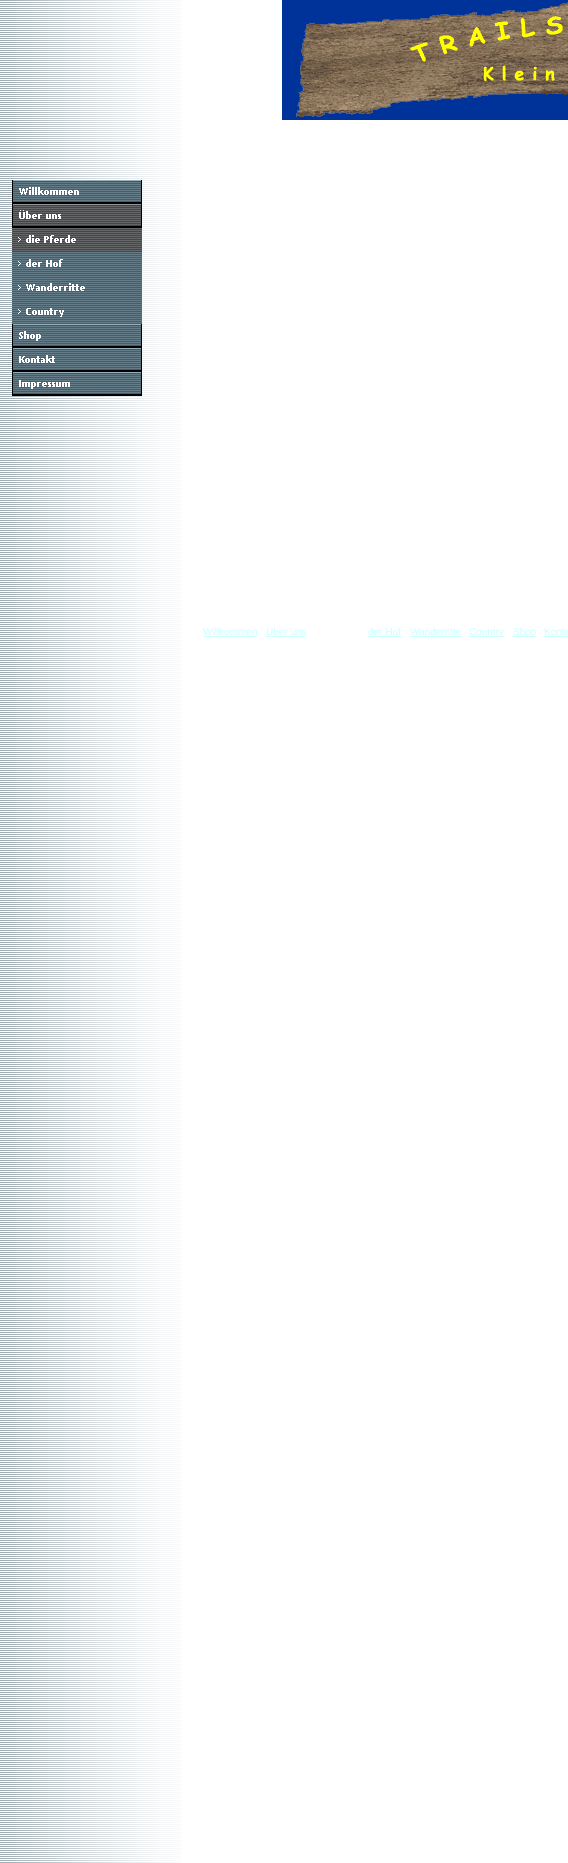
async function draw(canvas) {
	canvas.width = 568;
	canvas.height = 1863;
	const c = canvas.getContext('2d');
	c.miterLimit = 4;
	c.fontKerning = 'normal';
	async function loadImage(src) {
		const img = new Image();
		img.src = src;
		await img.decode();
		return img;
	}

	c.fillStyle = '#fff';
	c.fillRect(0, 0, 568, 1863);
	c.drawImage(await loadImage('img1.png'), 0, 0, 182, 1863);
	c.drawImage(await loadImage('img2.png'), 12, 180, 130, 24);
	c.drawImage(await loadImage('img3.png'), 12, 204, 130, 24);
	c.drawImage(await loadImage('img4.png'), 12, 228, 130, 24);
	c.drawImage(await loadImage('img5.png'), 12, 252, 130, 24);
	c.drawImage(await loadImage('img6.png'), 12, 276, 130, 24);
	c.drawImage(await loadImage('img7.png'), 12, 300, 130, 24);
	c.drawImage(await loadImage('img8.png'), 12, 324, 130, 24);
	c.drawImage(await loadImage('img9.png'), 12, 348, 130, 24);
	c.drawImage(await loadImage('img10.png'), 12, 372, 130, 24);
	c.drawImage(await loadImage('img11.png'), 282, 0, 286, 120);
	c.font = '10px Liberation Sans';
	c.fillStyle = '#cff';
	c.fillText('Willkommen', 203, 635);
	c.fillRect(203, 636, 54, 1);
	c.fillText('Über uns', 266, 635);
	c.fillRect(266, 636, 40, 1);
	c.fillText('der Hof', 368, 635);
	c.fillRect(368, 636, 33, 1);
	c.fillText('Wanderritte', 410, 635);
	c.fillRect(410, 636, 51, 1);
	c.fillRect(469, 636, 35, 1);
	c.fillText('Country', 469, 635);
	c.fillRect(513, 636, 23, 1);
	c.fillText('Shop', 513, 635);
	c.fillText('Konta', 544, 635);
	c.fillRect(544, 636, 24, 1);
}

draw(document.querySelector('canvas'));
